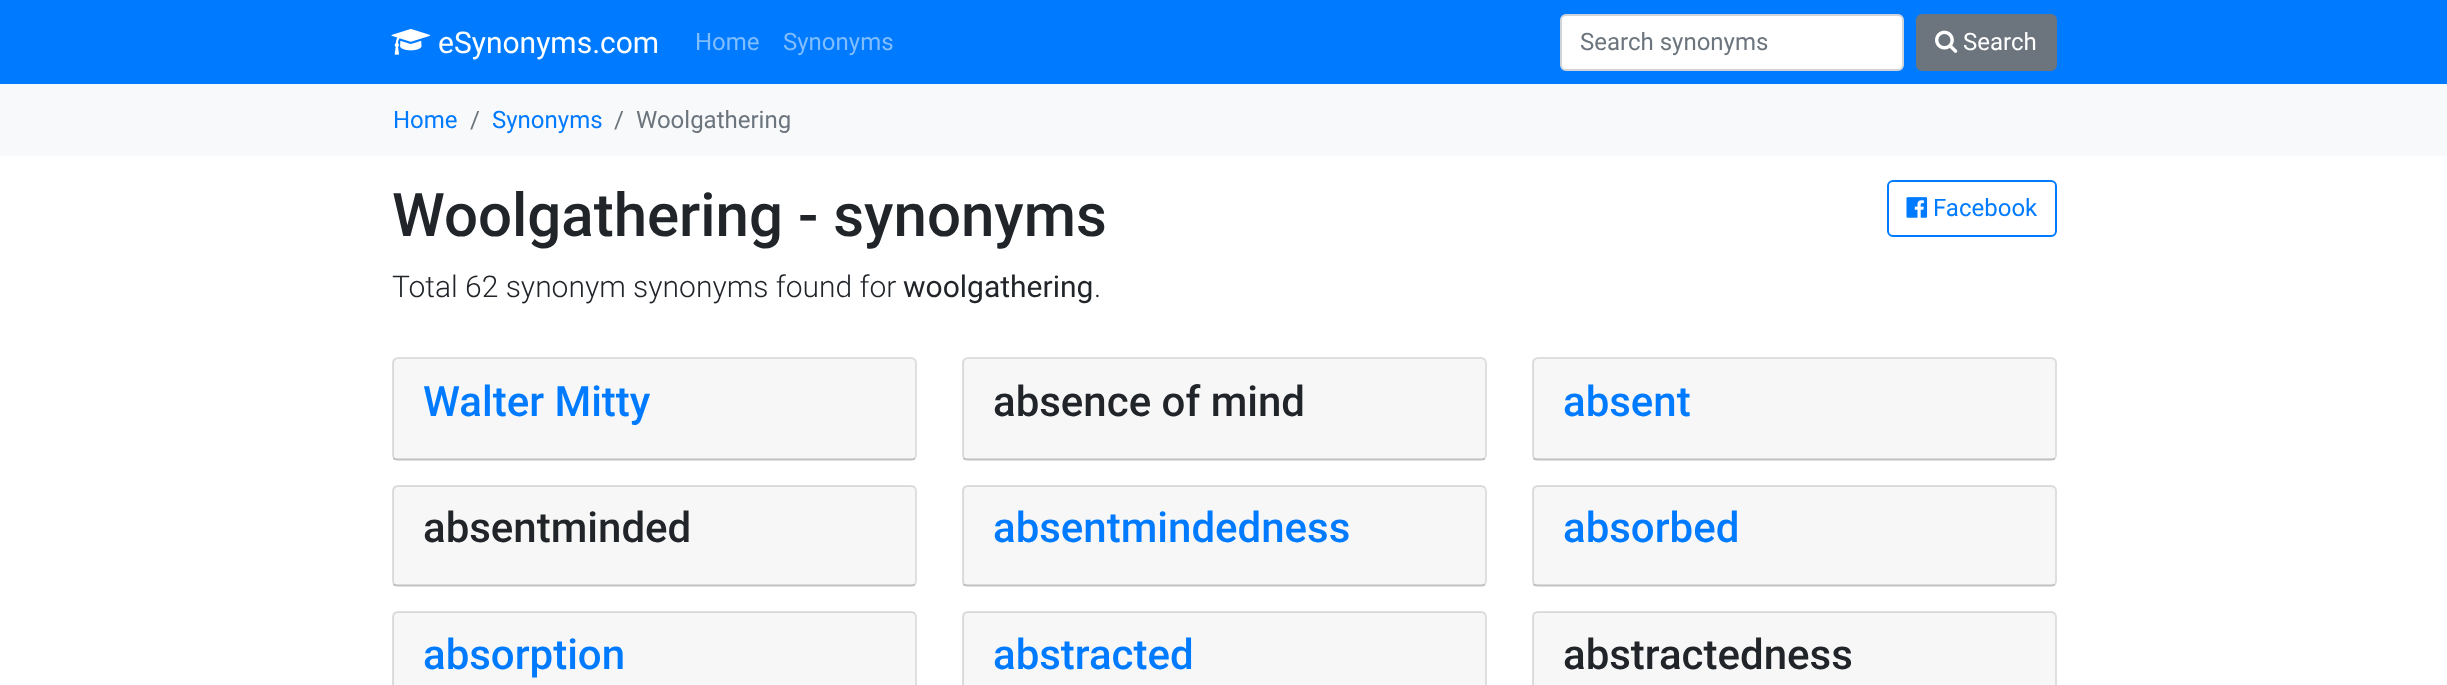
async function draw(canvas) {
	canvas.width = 2447;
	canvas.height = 685;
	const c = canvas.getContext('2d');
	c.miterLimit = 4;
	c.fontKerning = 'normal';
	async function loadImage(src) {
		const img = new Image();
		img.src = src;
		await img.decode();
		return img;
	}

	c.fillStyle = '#fff';
	c.fillRect(0, 0, 2447, 685);
	c.fillStyle = '#007bff';
	c.fillRect(0, 0, 2447, 84);
	c.drawImage(await loadImage('img1.png'), 391, 28, 39, 27);
	c.font = '30px Roboto';
	c.fillStyle = '#fff';
	c.fillText('eSynonyms.com', 438, 53);
	c.font = '24px Roboto';
	c.fillStyle = '#80bdff';
	c.fillText('Home', 695, 50);
	c.fillText('Synonyms', 783, 50);
	c.fillStyle = '#fff';
	c.beginPath();
	c.roundRect(1561, 15, 342, 55, 5);
	c.fill();
	c.strokeStyle = '#ced4da';
	c.lineWidth = 2;
	c.stroke();
	c.fillStyle = '#6c757d';
	c.fillText('Search synonyms', 1580, 50);
	c.beginPath();
	c.roundRect(1917, 15, 139, 55, 5);
	c.fill();
	c.strokeStyle = '#6c757d';
	c.stroke();
	c.drawImage(await loadImage('img2.png'), 1935, 30, 23, 23);
	c.fillStyle = '#fff';
	c.fillText('Search', 1963, 50);
	c.fillStyle = '#f8f9fa';
	c.fillRect(0, 84, 2447, 72);
	c.fillStyle = '#007bff';
	c.fillText('Home', 393, 128);
	c.fillStyle = '#6c757d';
	c.fillText('/', 470, 128);
	c.fillStyle = '#007bff';
	c.fillText('Synonyms', 492, 128);
	c.fillStyle = '#6c757d';
	c.fillText('/', 614, 128);
	c.fillText('Woolgathering', 636, 128);
	c.font = '500 60px Roboto';
	c.fillStyle = '#212529';
	c.fillText('Woolgathering - synonyms', 392, 236);
	c.beginPath();
	c.roundRect(1888, 181, 168, 55, 5);
	c.strokeStyle = '#007bff';
	c.stroke();
	c.drawImage(await loadImage('img3.png'), 1906, 197, 22, 21);
	c.font = '24px Roboto';
	c.fillStyle = '#007bff';
	c.fillText('Facebook', 1933, 216);
	c.font = '300 30px Roboto';
	c.fillStyle = '#212529';
	c.fillText('Total 62 synonym synonyms found for', 392, 297);
	c.font = '30px Roboto';
	c.fillText('woolgathering', 903, 297);
	c.font = '300 30px Roboto';
	c.fillText('.', 1094, 297);
	c.beginPath();
	c.roundRect(393, 358, 523, 102, 5);
	c.strokeStyle = '#dfdfdf';
	c.stroke();
	c.fillStyle = '#00000008';
	c.fillRect(393, 359, 522, 100);
	c.fillStyle = '#0000001f';
	c.fillRect(393, 458, 522, 2);
	c.font = '500 42px Roboto';
	c.fillStyle = '#007bff';
	c.fillText('Walter Mitty', 423, 416);
	c.beginPath();
	c.roundRect(963, 358, 523, 102, 5);
	c.stroke();
	c.fillStyle = '#00000008';
	c.fillRect(963, 359, 522, 100);
	c.fillStyle = '#0000001f';
	c.fillRect(963, 458, 522, 2);
	c.fillStyle = '#212529';
	c.fillText('absence of mind', 993, 416);
	c.beginPath();
	c.roundRect(1533, 358, 523, 102, 5);
	c.stroke();
	c.fillStyle = '#00000008';
	c.fillRect(1533, 359, 522, 100);
	c.fillStyle = '#0000001f';
	c.fillRect(1533, 458, 522, 2);
	c.fillStyle = '#007bff';
	c.fillText('absent', 1563, 416);
	c.beginPath();
	c.roundRect(393, 486, 523, 100, 5);
	c.stroke();
	c.fillStyle = '#00000008';
	c.fillRect(393, 486, 522, 99);
	c.fillStyle = '#0000001f';
	c.fillRect(393, 584, 522, 2);
	c.fillStyle = '#212529';
	c.fillText('absentminded', 423, 542);
	c.beginPath();
	c.roundRect(963, 486, 523, 100, 5);
	c.stroke();
	c.fillStyle = '#00000008';
	c.fillRect(963, 486, 522, 99);
	c.fillStyle = '#0000001f';
	c.fillRect(963, 584, 522, 2);
	c.fillStyle = '#007bff';
	c.fillText('absentmindedness', 993, 542);
	c.beginPath();
	c.roundRect(1533, 486, 523, 100, 5);
	c.stroke();
	c.fillStyle = '#00000008';
	c.fillRect(1533, 486, 522, 99);
	c.fillStyle = '#0000001f';
	c.fillRect(1533, 584, 522, 2);
	c.fillStyle = '#007bff';
	c.fillText('absorbed', 1563, 542);
	c.beginPath();
	c.roundRect(393, 612, 523, 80, 5);
	c.stroke();
	c.fillStyle = '#00000008';
	c.fillRect(393, 612, 522, 73);
	c.fillStyle = '#007bff';
	c.fillText('absorption', 423, 669);
	c.beginPath();
	c.roundRect(963, 612, 523, 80, 5);
	c.stroke();
	c.fillStyle = '#00000008';
	c.fillRect(963, 612, 522, 73);
	c.fillStyle = '#007bff';
	c.fillText('abstracted', 993, 669);
	c.beginPath();
	c.roundRect(1533, 612, 523, 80, 5);
	c.stroke();
	c.fillStyle = '#00000008';
	c.fillRect(1533, 612, 522, 73);
	c.fillStyle = '#212529';
	c.fillText('abstractedness', 1563, 669);
}

draw(document.querySelector('canvas'));
